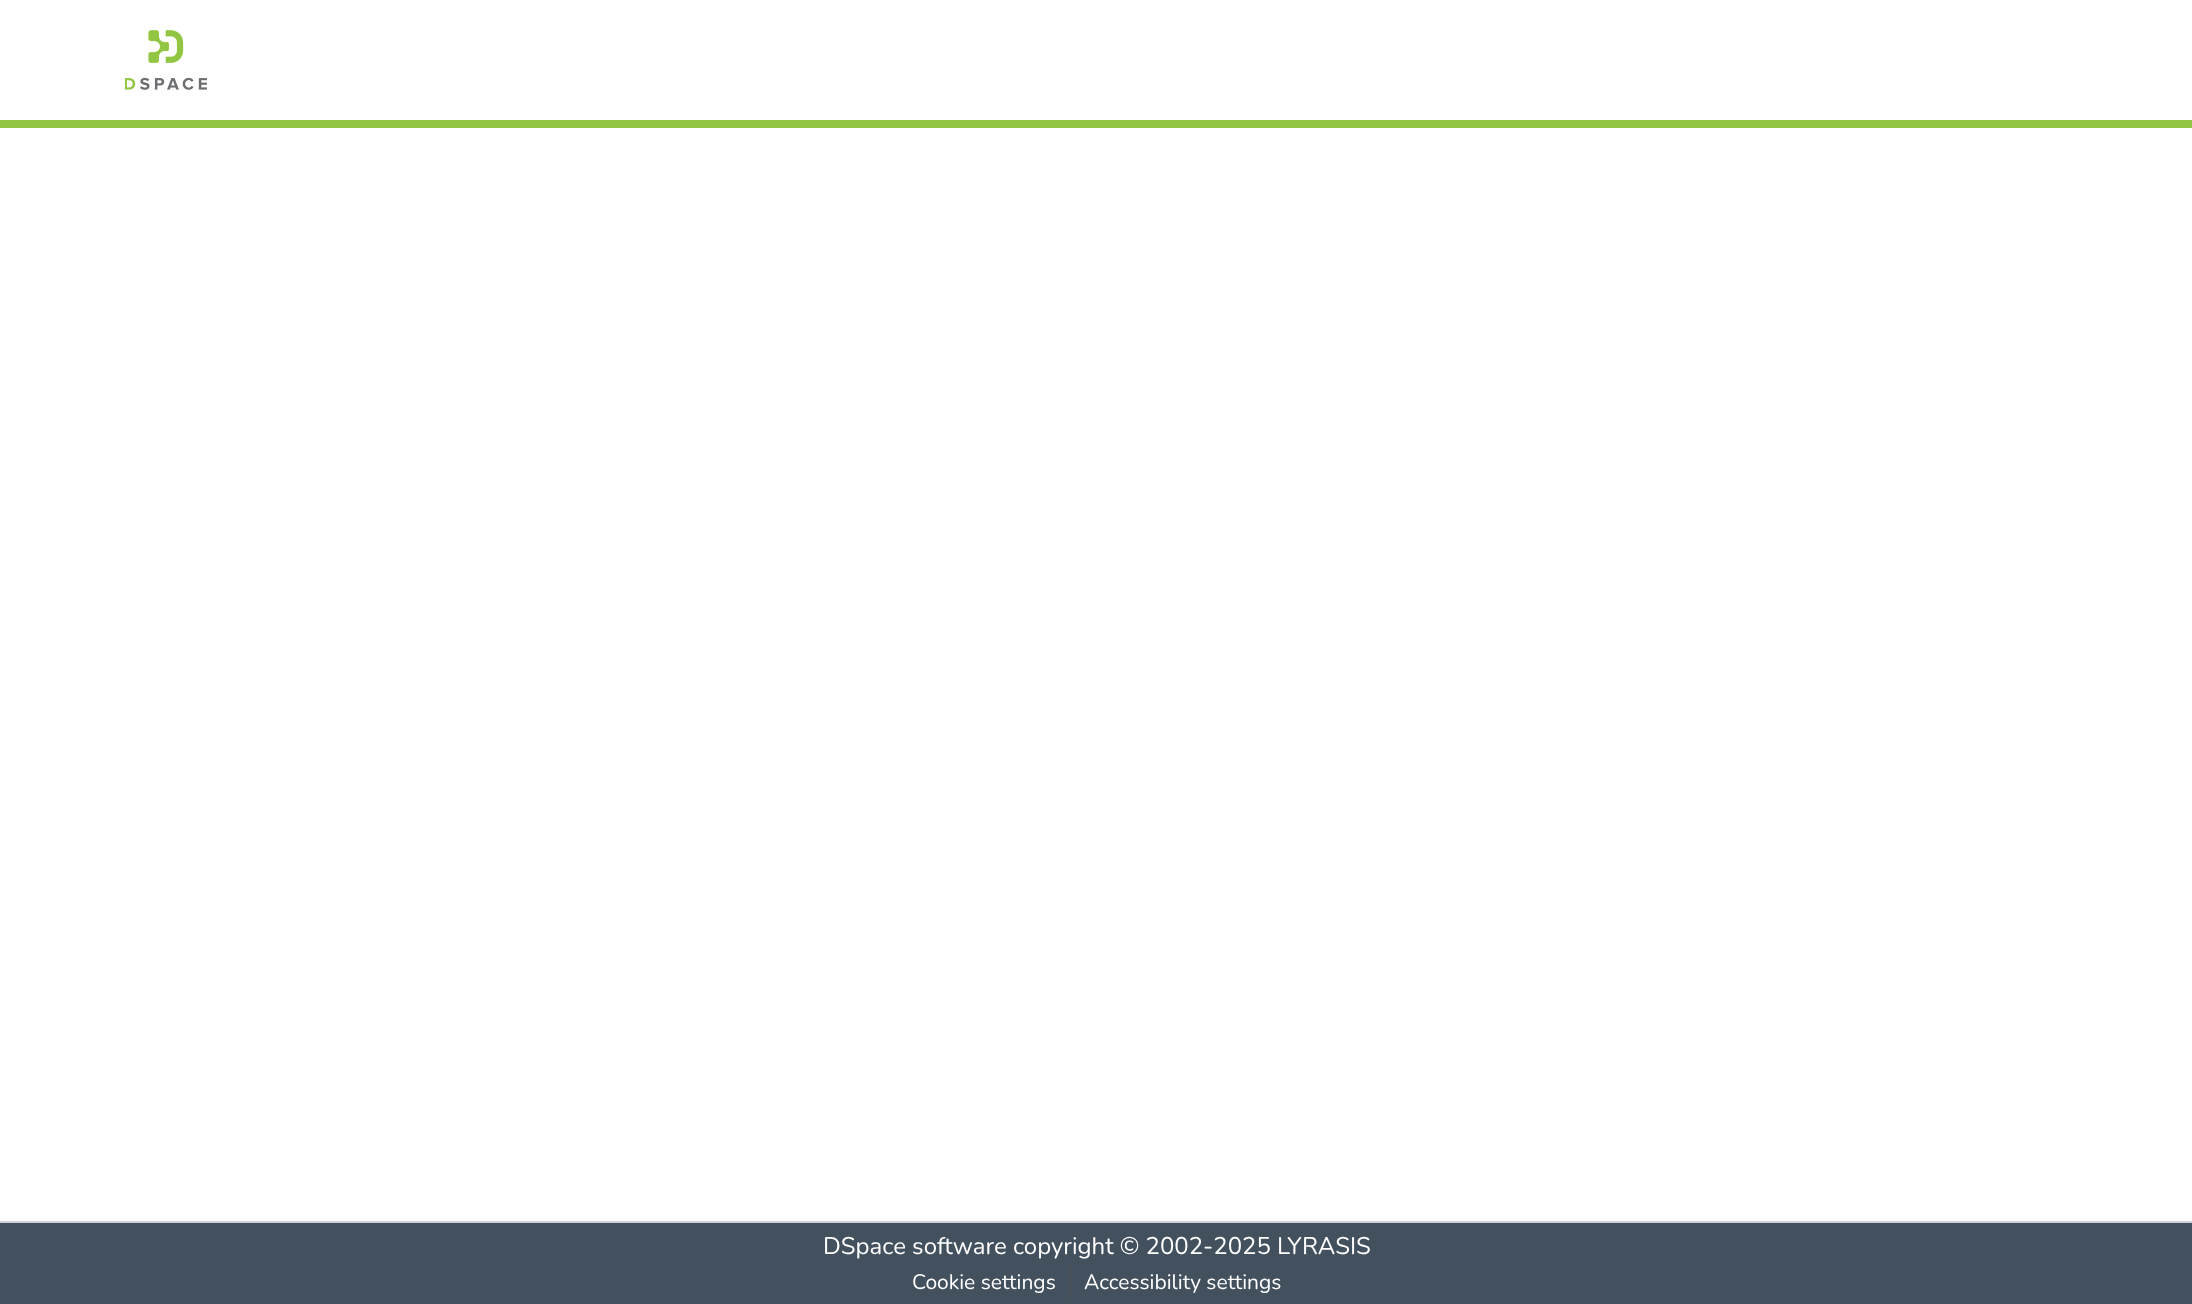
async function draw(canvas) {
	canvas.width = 2192;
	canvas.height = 1304;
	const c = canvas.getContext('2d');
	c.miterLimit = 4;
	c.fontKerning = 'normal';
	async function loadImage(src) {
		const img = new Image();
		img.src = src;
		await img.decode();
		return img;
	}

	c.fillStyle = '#fff';
	c.fillRect(0, 0, 2192, 1304);
	c.fillStyle = '#92c642';
	c.fillRect(0, 120, 2192, 8);
	c.drawImage(await loadImage('img1.png'), 125, 30, 82, 60);
	c.fillStyle = '#43515f';
	c.fillRect(0, 1223, 2192, 81);
	c.fillStyle = '#ced4da';
	c.fillRect(0, 1221, 2192, 2);
	c.font = '24px Nunito';
	c.fillStyle = '#fff';
	c.fillText('DSpace software copyright © 2002-2025 LYRASIS', 823, 1254);
	c.font = '21px Nunito';
	c.fillText('Cookie settings', 912, 1289);
	c.fillStyle = '#495057';
	c.fillRect(1070, 1265, 2, 34);
	c.fillStyle = '#fff';
	c.fillText('Accessibility settings', 1084, 1289);
}

draw(document.querySelector('canvas'));
